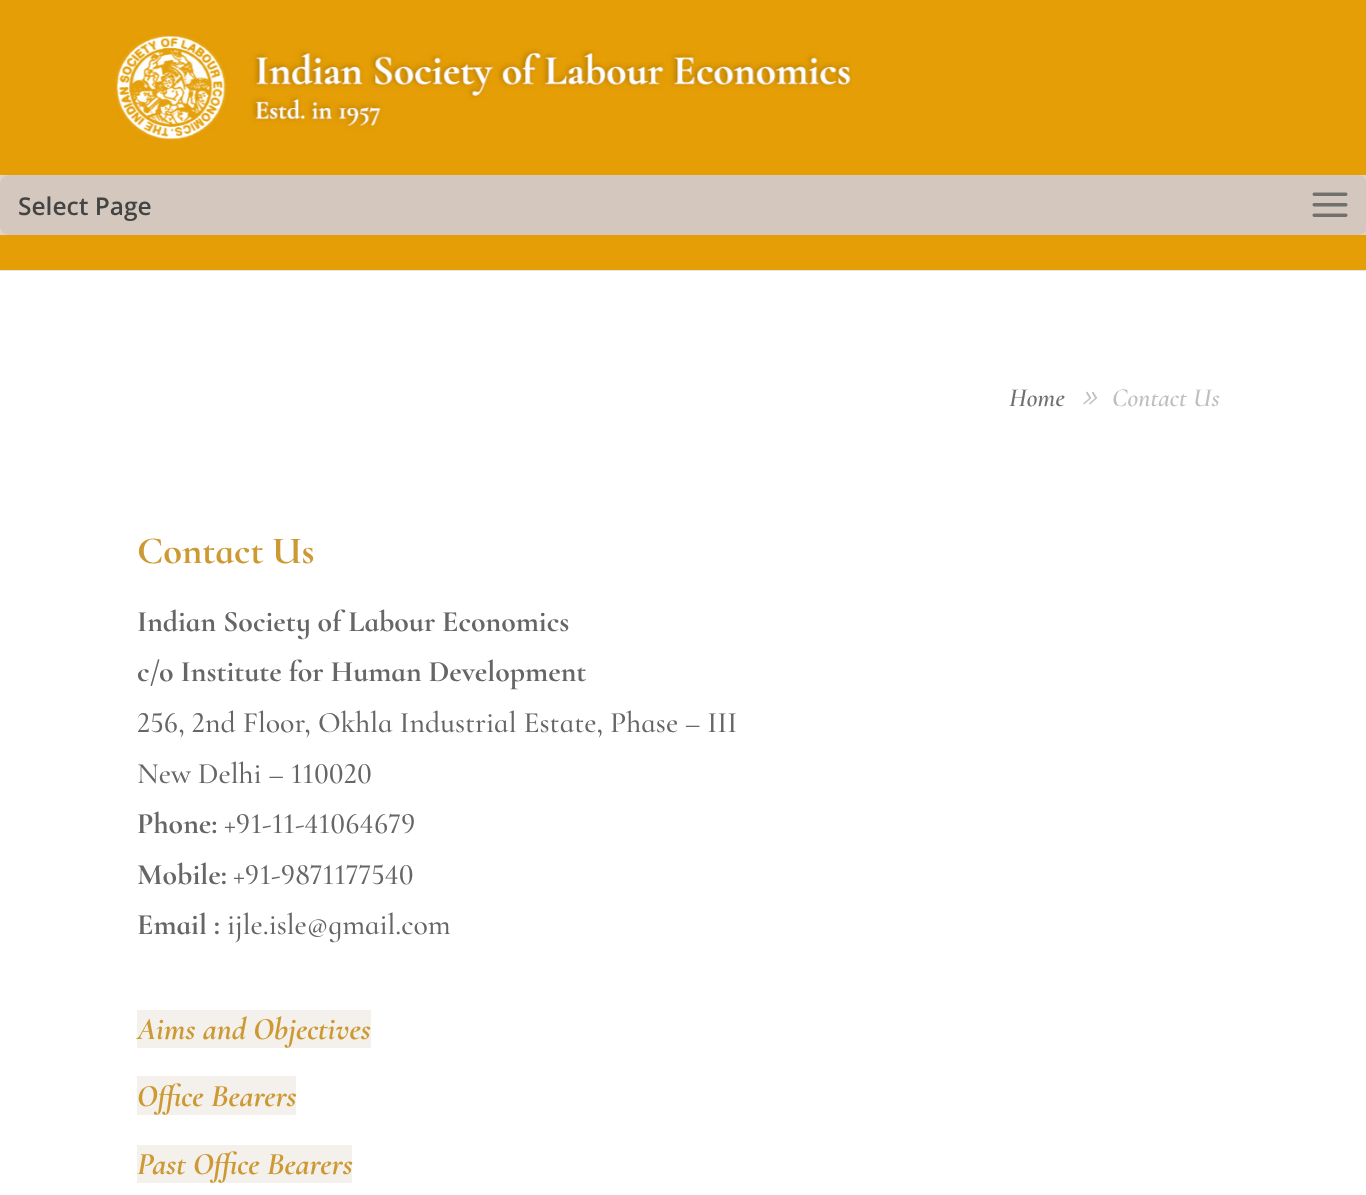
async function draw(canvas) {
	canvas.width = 1366;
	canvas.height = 1195;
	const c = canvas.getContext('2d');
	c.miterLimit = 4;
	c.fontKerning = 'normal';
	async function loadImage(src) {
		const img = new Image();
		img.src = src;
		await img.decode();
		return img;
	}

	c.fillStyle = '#fff';
	c.fillRect(0, 0, 1366, 1195);
	c.fillStyle = '#e6e6e6';
	c.beginPath();
	c.moveTo(0, 270);
	c.lineTo(0, 271);
	c.lineTo(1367, 271);
	c.lineTo(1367, 2);
	c.lineTo(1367, 270);
	c.closePath();
	c.fill();
	c.fillStyle = '#e59e05';
	c.fillRect(0, 0, 1366, 270);
	c.drawImage(await loadImage('img1.png'), 115, 35, 737, 105);
	c.fillStyle = '#dfd3c8';
	c.fillRect(0, 175, 1366, 60);
	c.fillStyle = '#d4c8be';
	c.beginPath();
	c.roundRect(0, 175, 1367, 60, 9);
	c.fill();
	c.font = '600 24.5px Open Sans';
	c.fillStyle = '#444';
	c.fillText('Select Page', 18, 215);
	c.drawImage(await loadImage('img2.png'), 1312, 192, 36, 25);
	c.font = 'italic 600 26.25px Cormorant Infant';
	c.fillStyle = '#707070';
	c.fillText('Home', 1009, 406);
	c.drawImage(await loadImage('img3.png'), 1083, 391, 14, 14);
	c.fillStyle = '#bfbfbf';
	c.fillText('Contact Us', 1112, 406);
	c.font = 'bold 38.5px Cormorant Infant';
	c.fillStyle = '#c93';
	c.fillText('Contact Us', 137, 563);
	c.font = 'bold 29.75px Cormorant Infant';
	c.fillStyle = '#666';
	c.fillText('Indian Society of Labour Economics', 137, 631);
	c.fillText('c/o Institute for Human Development', 137, 681);
	c.font = '500 29.75px Cormorant Infant';
	c.fillText('256, 2nd Floor, Okhla Industrial Estate, Phase – III', 137, 732);
	c.fillText('New Delhi – 110020', 137, 783);
	c.font = 'bold 29.75px Cormorant Infant';
	c.fillText('Phone:', 137, 833);
	c.font = '500 29.75px Cormorant Infant';
	c.fillText('+91-11-41064679', 224, 833);
	c.font = 'bold 29.75px Cormorant Infant';
	c.fillText('Mobile:', 137, 884);
	c.font = '500 29.75px Cormorant Infant';
	c.fillText('+91-9871177540', 233, 884);
	c.font = 'bold 29.75px Cormorant Infant';
	c.fillText('Email :', 137, 934);
	c.font = '500 29.75px Cormorant Infant';
	c.fillText('ijle.isle@gmail.com', 227, 934);
	c.fillStyle = '#f4f0ec';
	c.fillRect(137, 1010, 234, 38);
	c.font = 'italic bold 31.5px Cormorant Infant';
	c.fillStyle = '#c93';
	c.fillText('Aims and Objectives', 137, 1039);
	c.fillStyle = '#f4f0ec';
	c.fillRect(137, 1076, 159, 39);
	c.fillStyle = '#c93';
	c.fillText('Office Bearers', 137, 1106);
	c.fillStyle = '#f4f0ec';
	c.fillRect(137, 1145, 215, 38);
	c.fillStyle = '#c93';
	c.fillText('Past Office Bearers', 137, 1174);
}

draw(document.querySelector('canvas'));
